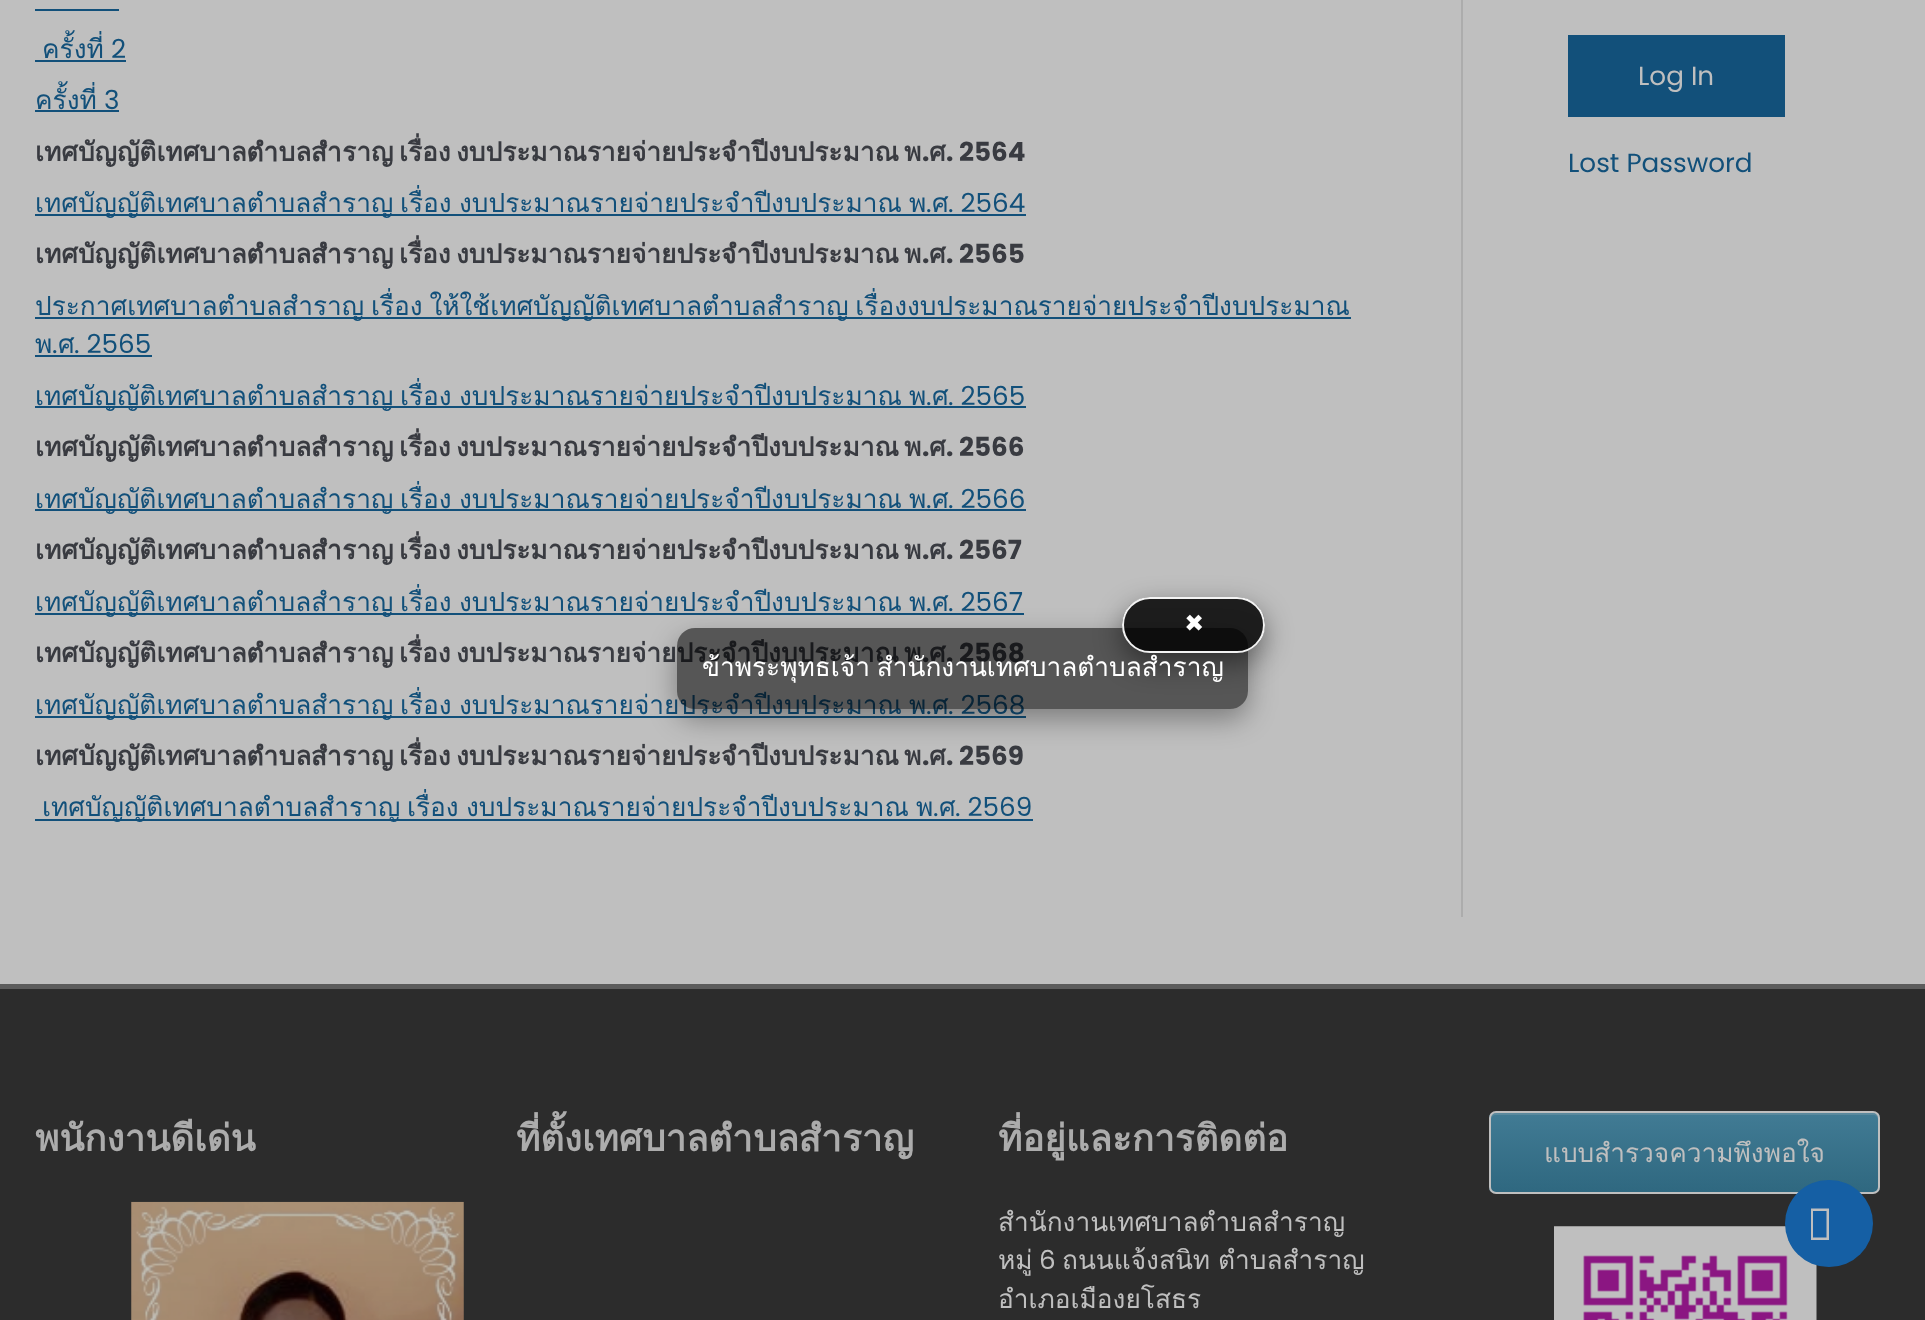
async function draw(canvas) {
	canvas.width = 1925;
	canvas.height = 1320;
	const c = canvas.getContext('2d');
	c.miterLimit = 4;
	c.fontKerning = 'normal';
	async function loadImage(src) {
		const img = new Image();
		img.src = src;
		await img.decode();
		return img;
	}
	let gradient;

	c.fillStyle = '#bfbfbf';
	c.fillRect(0, 0, 1925, 1320);
	c.fillStyle = '#12507a';
	c.fillRect(35, 9, 84, 2);
	c.font = '26.25px Loma';
	c.fillText('ครั้งที่', 42, 58);
	c.font = '26.25px Poppins';
	c.fillText('2', 111, 58);
	c.fillRect(35, 60, 91, 2);
	c.font = '26.25px Loma';
	c.fillText('ครั้งที่', 35, 109);
	c.font = '26.25px Poppins';
	c.fillText('3', 104, 109);
	c.fillRect(35, 110, 84, 2);
	c.font = 'bold 26.25px Loma';
	c.fillStyle = '#393b41';
	for (const [text, x, y] of [
		['เทศบัญญัติเทศบาลตำบลสำราญ', 35, 161],
		['เรื่อง', 399, 161],
		['งบประมาณรายจ่ายประจำปีงบประมาณ', 456, 161],
		['พ', 904, 161],
	]) {
		c.fillText(text, x, y);
	}
	c.font = 'bold 26.25px Poppins';
	c.fillText('.', 922, 161);
	c.font = 'bold 26.25px Loma';
	c.fillText('ศ', 929, 161);
	c.font = 'bold 26.25px Poppins';
	c.fillText('. 2564', 946, 161);
	c.fillStyle = '#12507a';
	c.fillRect(35, 214, 991, 2);
	c.font = '26.25px Loma';
	for (const [text, x, y] of [
		['เทศบัญญัติเทศบาลตำบลสำราญ', 35, 212],
		['เรื่อง', 400, 212],
		['งบประมาณรายจ่ายประจำปีงบประมาณ', 459, 212],
		['พ', 909, 212],
	]) {
		c.fillText(text, x, y);
	}
	c.font = '26.25px Poppins';
	c.fillText('.', 926, 212);
	c.font = '26.25px Loma';
	c.fillText('ศ', 932, 212);
	c.font = '26.25px Poppins';
	c.fillText('. 2564', 948, 212);
	c.font = 'bold 26.25px Loma';
	c.fillStyle = '#393b41';
	for (const [text, x, y] of [
		['เทศบัญญัติเทศบาลตำบลสำราญ', 35, 263],
		['เรื่อง', 399, 263],
		['งบประมาณรายจ่ายประจำปีงบประมาณ', 456, 263],
		['พ', 904, 263],
	]) {
		c.fillText(text, x, y);
	}
	c.font = 'bold 26.25px Poppins';
	c.fillText('.', 922, 263);
	c.font = 'bold 26.25px Loma';
	c.fillText('ศ', 929, 263);
	c.font = 'bold 26.25px Poppins';
	c.fillText('. 2565', 946, 263);
	c.fillStyle = '#12507a';
	c.fillRect(35, 317, 1316, 2);
	c.wordSpacing = '-2px';
	c.font = '26.25px Loma';
	c.fillText('ประกาศเทศบาลตำบลสำราญ เรื่อง ให้ใช้เทศบัญญัติเทศบาลตำบลสำราญ เรื่องงบประมาณรายจ่ายประจำปีงบประมาณ', 35, 315);
	c.wordSpacing = '0px';
	c.fillText('พ', 35, 353);
	c.font = '26.25px Poppins';
	c.fillText('.', 52, 353);
	c.fillRect(35, 355, 117, 2);
	c.font = '26.25px Loma';
	c.fillText('ศ', 58, 353);
	c.font = '26.25px Poppins';
	c.fillText('. 2565', 74, 353);
	c.fillRect(35, 406, 991, 2);
	c.font = '26.25px Loma';
	for (const [text, x, y] of [
		['เทศบัญญัติเทศบาลตำบลสำราญ', 35, 405],
		['เรื่อง', 400, 405],
		['งบประมาณรายจ่ายประจำปีงบประมาณ', 459, 405],
		['พ', 909, 405],
	]) {
		c.fillText(text, x, y);
	}
	c.font = '26.25px Poppins';
	c.fillText('.', 926, 405);
	c.font = '26.25px Loma';
	c.fillText('ศ', 932, 405);
	c.font = '26.25px Poppins';
	c.fillText('. 2565', 948, 405);
	c.font = 'bold 26.25px Loma';
	c.fillStyle = '#393b41';
	for (const [text, x, y] of [
		['เทศบัญญัติเทศบาลตำบลสำราญ', 35, 456],
		['เรื่อง', 399, 456],
		['งบประมาณรายจ่ายประจำปีงบประมาณ', 456, 456],
		['พ', 904, 456],
	]) {
		c.fillText(text, x, y);
	}
	c.font = 'bold 26.25px Poppins';
	c.fillText('.', 922, 456);
	c.font = 'bold 26.25px Loma';
	c.fillText('ศ', 929, 456);
	c.font = 'bold 26.25px Poppins';
	c.fillText('. 2566', 946, 456);
	c.fillStyle = '#12507a';
	c.fillRect(35, 509, 991, 2);
	c.font = '26.25px Loma';
	for (const [text, x, y] of [
		['เทศบัญญัติเทศบาลตำบลสำราญ', 35, 508],
		['เรื่อง', 400, 508],
		['งบประมาณรายจ่ายประจำปีงบประมาณ', 459, 508],
		['พ', 909, 508],
	]) {
		c.fillText(text, x, y);
	}
	c.font = '26.25px Poppins';
	c.fillText('.', 926, 508);
	c.font = '26.25px Loma';
	c.fillText('ศ', 932, 508);
	c.font = '26.25px Poppins';
	c.fillText('. 2566', 948, 508);
	c.font = 'bold 26.25px Loma';
	c.fillStyle = '#393b41';
	for (const [text, x, y] of [
		['เทศบัญญัติเทศบาลตำบลสำราญ', 35, 559],
		['เรื่อง', 399, 559],
		['งบประมาณรายจ่ายประจำปีงบประมาณ', 456, 559],
		['พ', 904, 559],
	]) {
		c.fillText(text, x, y);
	}
	c.font = 'bold 26.25px Poppins';
	c.fillText('.', 922, 559);
	c.font = 'bold 26.25px Loma';
	c.fillText('ศ', 929, 559);
	c.font = 'bold 26.25px Poppins';
	c.fillText('. 2567', 946, 559);
	c.fillStyle = '#12507a';
	c.fillRect(35, 613, 989, 2);
	c.font = '26.25px Loma';
	for (const [text, x, y] of [
		['เทศบัญญัติเทศบาลตำบลสำราญ', 35, 611],
		['เรื่อง', 400, 611],
		['งบประมาณรายจ่ายประจำปีงบประมาณ', 459, 611],
		['พ', 909, 611],
	]) {
		c.fillText(text, x, y);
	}
	c.font = '26.25px Poppins';
	c.fillText('.', 926, 611);
	c.font = '26.25px Loma';
	c.fillText('ศ', 932, 611);
	c.font = '26.25px Poppins';
	c.fillText('. 2567', 948, 611);
	c.font = 'bold 26.25px Loma';
	c.fillStyle = '#393b41';
	for (const [text, x, y] of [
		['เทศบัญญัติเทศบาลตำบลสำราญ', 35, 662],
		['เรื่อง', 399, 662],
		['งบประมาณรายจ่ายประจำปีงบประมาณ', 456, 662],
		['พ', 904, 662],
	]) {
		c.fillText(text, x, y);
	}
	c.font = 'bold 26.25px Poppins';
	c.fillText('.', 922, 662);
	c.font = 'bold 26.25px Loma';
	c.fillText('ศ', 929, 662);
	c.font = 'bold 26.25px Poppins';
	c.fillText('. 2568', 946, 662);
	c.fillStyle = '#12507a';
	c.fillRect(35, 716, 991, 2);
	c.font = '26.25px Loma';
	for (const [text, x, y] of [
		['เทศบัญญัติเทศบาลตำบลสำราญ', 35, 714],
		['เรื่อง', 400, 714],
		['งบประมาณรายจ่ายประจำปีงบประมาณ', 459, 714],
		['พ', 909, 714],
	]) {
		c.fillText(text, x, y);
	}
	c.font = '26.25px Poppins';
	c.fillText('.', 926, 714);
	c.font = '26.25px Loma';
	c.fillText('ศ', 932, 714);
	c.font = '26.25px Poppins';
	c.fillText('. 2568', 948, 714);
	c.font = 'bold 26.25px Loma';
	c.fillStyle = '#393b41';
	for (const [text, x, y] of [
		['เทศบัญญัติเทศบาลตำบลสำราญ', 35, 765],
		['เรื่อง', 399, 765],
		['งบประมาณรายจ่ายประจำปีงบประมาณ', 456, 765],
		['พ', 904, 765],
	]) {
		c.fillText(text, x, y);
	}
	c.font = 'bold 26.25px Poppins';
	c.fillText('.', 922, 765);
	c.font = 'bold 26.25px Loma';
	c.fillText('ศ', 929, 765);
	c.font = 'bold 26.25px Poppins';
	c.fillText('. 2569', 946, 765);
	c.fillStyle = '#12507a';
	c.fillRect(35, 819, 998, 2);
	c.font = '26.25px Loma';
	for (const [text, x, y] of [
		['เทศบัญญัติเทศบาลตำบลสำราญ', 42, 816],
		['เรื่อง', 407, 816],
		['งบประมาณรายจ่ายประจำปีงบประมาณ', 466, 816],
		['พ', 916, 816],
	]) {
		c.fillText(text, x, y);
	}
	c.font = '26.25px Poppins';
	c.fillText('.', 933, 816);
	c.font = '26.25px Loma';
	c.fillText('ศ', 939, 816);
	c.font = '26.25px Poppins';
	c.fillText('. 2569', 955, 816);
	c.fillStyle = '#acacac';
	c.fillRect(1461, 0, 2, 917);
	c.fillStyle = '#12507a';
	c.fillRect(1568, 35, 217, 82);
	c.fillStyle = '#bfbfbf';
	c.fillText('Log In', 1638, 85);
	c.fillStyle = '#12507a';
	c.fillText('Lost Password', 1568, 172);
	c.fillStyle = '#2c2c2c';
	c.fillRect(0, 989, 1925, 331);
	c.fillStyle = '#5c5c5c';
	c.fillRect(0, 984, 1925, 5);
	c.font = 'bold 36.75px Loma';
	c.fillStyle = '#acacac';
	c.fillText('พนักงานดีเด่น', 35, 1151);
	c.drawImage(await loadImage('img1.png'), 131, 1201, 333, 119);
	c.fillText('ที่ตั้งเทศบาลตำบลสำราญ', 516, 1151);
	c.fillText('ที่อยู่และการติดต่อ', 998, 1151);
	c.font = '26.25px Loma';
	c.fillStyle = '#bfbfbf';
	c.fillText('สำนักงานเทศบาลตำบลสำราญ', 998, 1231);
	c.fillText('หมู่', 998, 1269);
	c.font = '26.25px Poppins';
	c.fillText('6', 1039, 1269);
	c.wordSpacing = '-1px';
	c.font = '26.25px Loma';
	c.fillText('ถนนแจ้งสนิท ตำบลสำราญ', 1062, 1269);
	c.wordSpacing = '0px';
	c.fillText('อำเภอเมืองยโสธร', 998, 1308);
	c.save();
	c.beginPath();
	c.roundRect(1489, 1111, 391, 83, 7);
	c.clip();
	gradient = c.createLinearGradient(1491, 1192, 1491, 1113);
	gradient.addColorStop(0, '#2f6880');
	gradient.addColorStop(1, '#417b94');
	c.fillStyle = gradient;
	c.fillRect(1489, 1113, 391, 79);
	c.restore();
	c.fillStyle = '#5a899d';
	c.beginPath();
	c.moveTo(1496, 1115);
	c.lineTo(1873, 1115);
	c.bezierCurveTo(1876, 1115, 1878, 1117, 1878, 1120);
	c.lineTo(1878, 1118);
	c.bezierCurveTo(1878, 1115, 1876, 1113, 1873, 1113);
	c.lineTo(1496, 1113);
	c.bezierCurveTo(1493, 1113, 1491, 1115, 1491, 1118);
	c.lineTo(1491, 1120);
	c.bezierCurveTo(1491, 1117, 1493, 1115, 1496, 1115);
	c.closePath();
	c.fill();
	c.beginPath();
	c.roundRect(1490, 1112, 389, 81, 6);
	c.strokeStyle = '#bfbfbf';
	c.lineWidth = 2;
	c.stroke();
	c.fillStyle = '#bfbfbf';
	c.fillText('แบบสำรวจความพึงพอใจ', 1544, 1162);
	c.drawImage(await loadImage('img2.png'), 1554, 1226, 263, 94);
	c.save();
	c.beginPath();
	c.moveTo(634, 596);
	c.lineTo(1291, 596);
	c.lineTo(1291, 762);
	c.lineTo(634, 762);
	c.closePath();
	c.moveTo(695, 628);
	c.lineTo(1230, 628);
	c.bezierCurveTo(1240, 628, 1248, 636, 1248, 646);
	c.lineTo(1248, 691);
	c.bezierCurveTo(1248, 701, 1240, 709, 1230, 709);
	c.lineTo(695, 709);
	c.bezierCurveTo(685, 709, 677, 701, 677, 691);
	c.lineTo(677, 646);
	c.bezierCurveTo(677, 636, 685, 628, 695, 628);
	c.closePath();
	c.clip('evenodd');
	c.fillStyle = '#00000059';
	c.filter = 'blur(14px)';
	c.beginPath();
	c.roundRect(677, 639, 571, 80, 18);
	c.fill();
	c.filter = 'none';
	c.restore();
	c.fillStyle = '#0000008c';
	c.beginPath();
	c.roundRect(677, 628, 571, 81, 18);
	c.fill();
	c.save();
	c.beginPath();
	c.moveTo(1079, 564);
	c.lineTo(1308, 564);
	c.lineTo(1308, 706);
	c.lineTo(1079, 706);
	c.closePath();
	c.moveTo(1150, 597);
	c.lineTo(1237, 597);
	c.bezierCurveTo(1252.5, 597, 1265, 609.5, 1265, 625);
	c.bezierCurveTo(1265, 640.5, 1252.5, 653, 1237, 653);
	c.lineTo(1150, 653);
	c.bezierCurveTo(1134.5, 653, 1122, 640.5, 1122, 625);
	c.bezierCurveTo(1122, 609.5, 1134.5, 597, 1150, 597);
	c.closePath();
	c.clip('evenodd');
	c.fillStyle = '#00000073';
	c.filter = 'blur(14px)';
	c.beginPath();
	c.roundRect(1122, 607, 143, 56, 28);
	c.fill();
	c.filter = 'none';
	c.restore();
	c.fillStyle = '#000000d9';
	c.beginPath();
	c.roundRect(1122, 597, 143, 56, 28);
	c.fill();
	c.beginPath();
	c.roundRect(1123, 598, 141, 54, 27);
	c.strokeStyle = '#fffffff2';
	c.stroke();
	c.font = 'bold 32px Poppins';
	c.fillStyle = '#fff';
	c.fillText('×', 1184, 634);
	c.wordSpacing = '-2px';
	c.font = '26.25px Loma';
	c.fillText('ข้าพระพุทธเจ้า สำนักงานเทศบาลตำบลสำราญ', 702, 676);
	c.fillStyle = '#155fa4';
	c.beginPath();
	c.roundRect(1785, 1180, 88, 87, 43.5);
	c.fill();
	c.fillStyle = '#bfbfbf';
	c.beginPath();
	c.moveTo(1811, 1240);
	c.lineTo(1811, 1208.5);
	c.lineTo(1829, 1208.5);
	c.lineTo(1829, 1240);
	c.closePath();
	c.moveTo(1813, 1237.5);
	c.lineTo(1826.5, 1237.5);
	c.lineTo(1826.5, 1211);
	c.lineTo(1813, 1211);
	c.closePath();
	c.fill();
}

draw(document.querySelector('canvas'));
